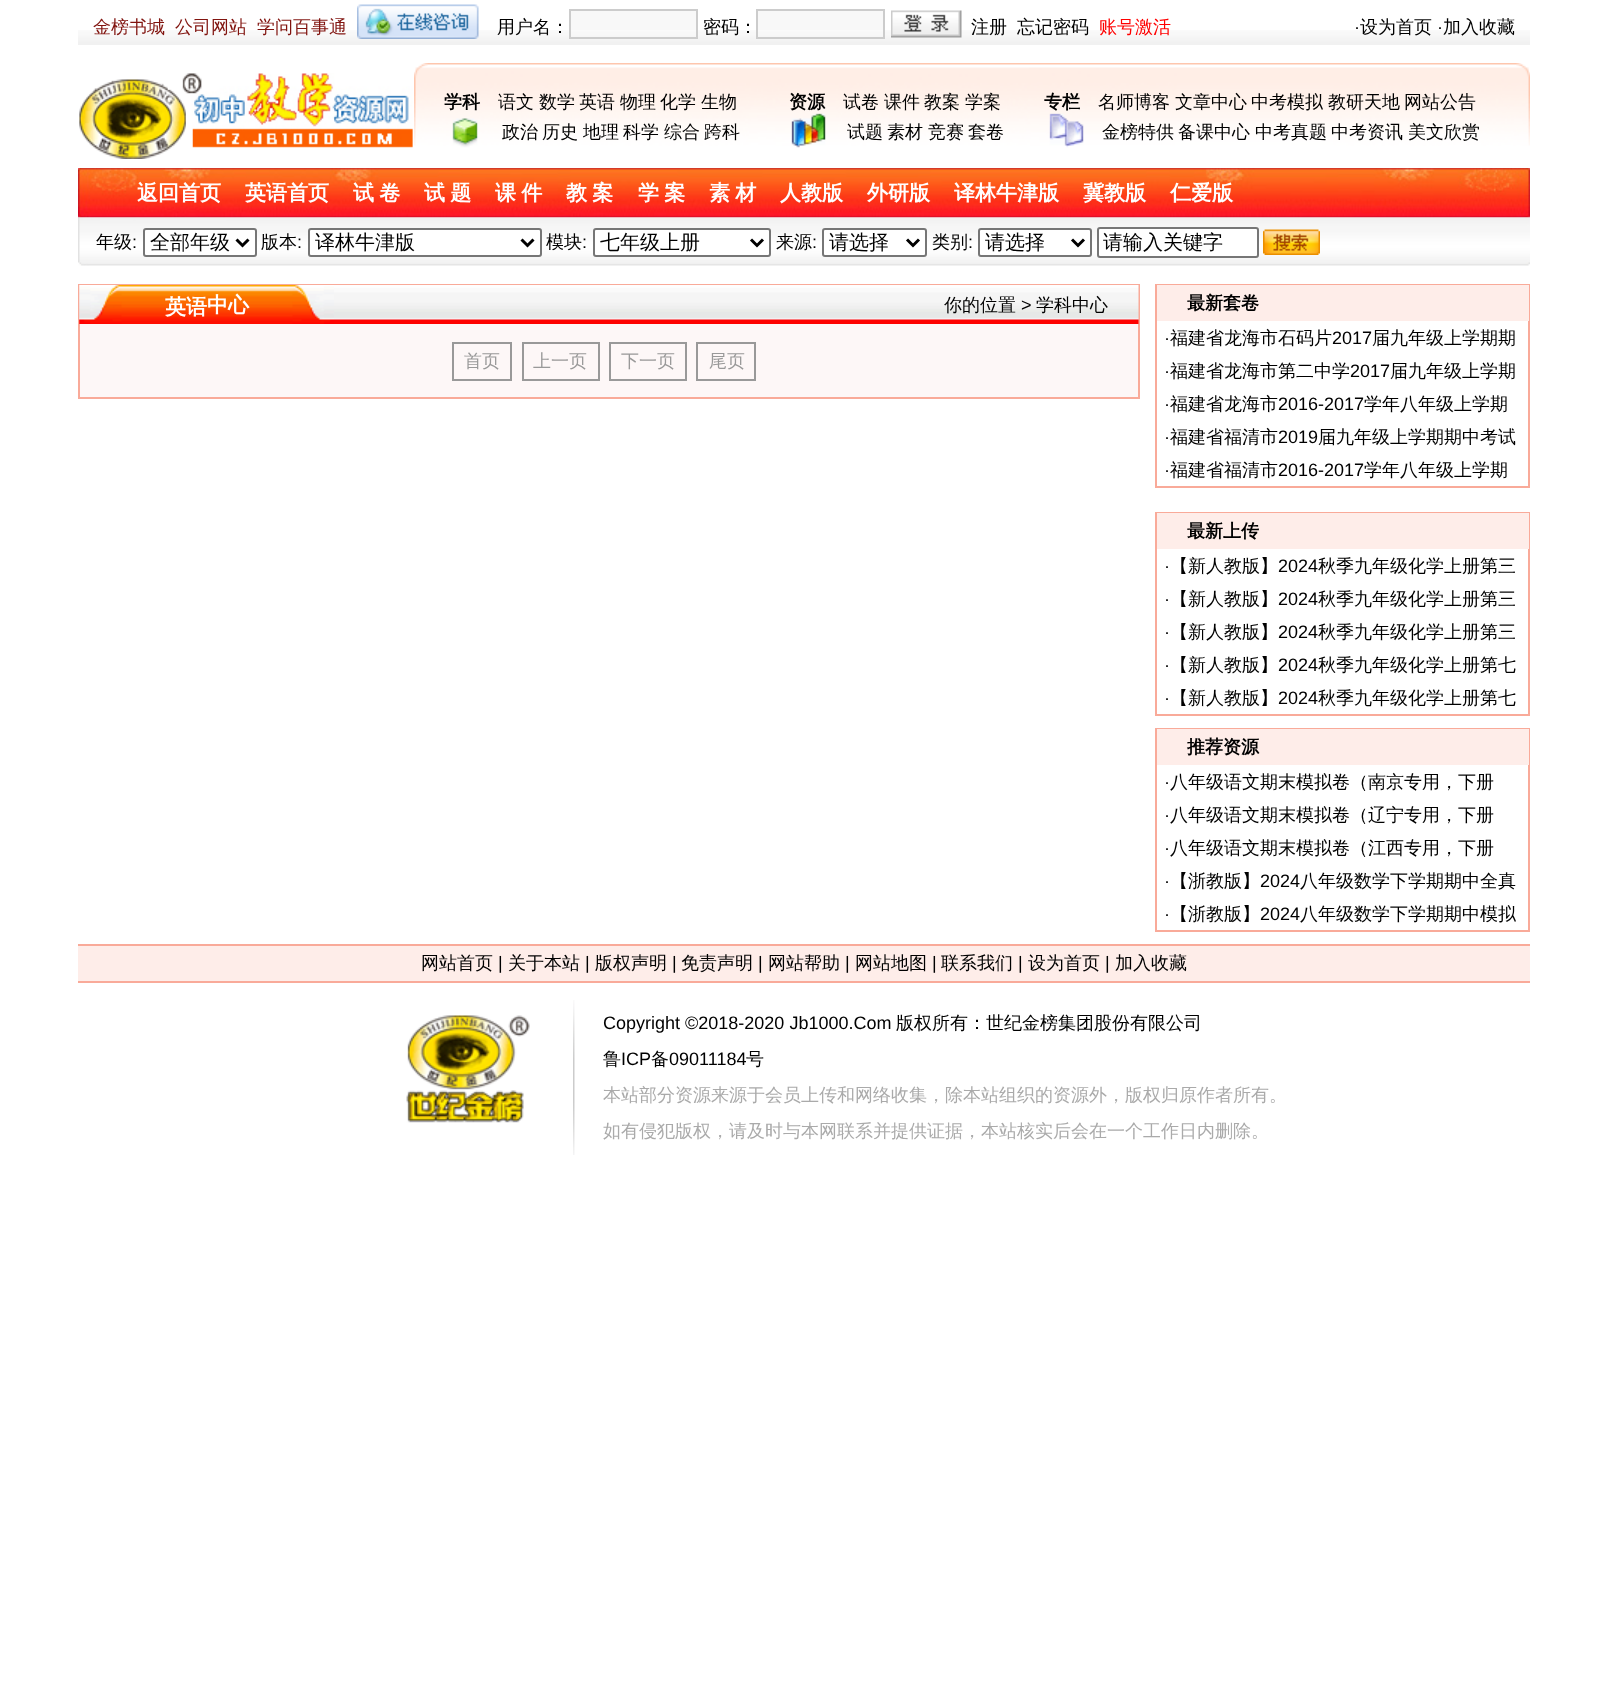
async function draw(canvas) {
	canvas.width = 1608;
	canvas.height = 1695;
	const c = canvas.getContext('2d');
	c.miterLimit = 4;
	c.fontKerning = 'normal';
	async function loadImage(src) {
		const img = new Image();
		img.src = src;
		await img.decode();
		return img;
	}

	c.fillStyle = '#fff';
	c.fillRect(0, 0, 1608, 1695);
	c.drawImage(await loadImage('img1.png'), 78, 30, 1452, 15);
	c.font = '500 18px WenQuanYi Zen Hei';
	c.fillStyle = '#81140f';
	for (const [text, x, y] of [
		['金榜书城', 93, 33],
		['公司网站', 175, 33],
		['学问百事通', 257, 33],
	]) {
		c.fillText(text, x, y);
	}
	c.drawImage(await loadImage('img2.png'), 357, 4, 122, 35);
	c.fillStyle = '#000';
	c.fillText('用户名：', 497, 33);
	c.fillStyle = '#f8f8f8';
	c.fillRect(571, 11, 125, 19);
	c.strokeStyle = '#ccc';
	c.lineWidth = 2;
	c.strokeRect(570, 10, 127, 28);
	c.fillStyle = '#000';
	c.fillText('密码：', 703, 33);
	c.fillStyle = '#f8f8f8';
	c.fillRect(758, 11, 125, 19);
	c.strokeRect(757, 10, 127, 28);
	c.drawImage(await loadImage('img3.png'), 891, 10, 71, 28);
	c.fillStyle = '#000';
	c.fillText('注册', 971, 33);
	c.fillText('忘记密码', 1017, 33);
	c.fillStyle = '#f00';
	c.fillText('账号激活', 1099, 33);
	c.font = '18px Liberation Sans';
	c.fillStyle = '#000';
	c.fillText('·', 1354, 33);
	c.font = '500 18px WenQuanYi Zen Hei';
	c.fillText('设为首页', 1360, 33);
	c.font = '18px Liberation Sans';
	c.fillText('·', 1437, 33);
	c.font = '500 18px WenQuanYi Zen Hei';
	c.fillText('加入收藏', 1443, 33);
	c.drawImage(await loadImage('img4.png'), 79, 73, 334, 86);
	c.drawImage(await loadImage('img5.png'), 414, 63, 1116, 85);
	c.font = 'bold 18px WenQuanYi Zen Hei';
	c.fillText('学科', 444, 108);
	c.font = '500 18px WenQuanYi Zen Hei';
	for (const [text, x, y] of [
		['语文', 498, 108],
		['数学', 539, 108],
		['英语', 579, 108],
		['物理', 620, 108],
		['化学', 660, 108],
		['生物', 701, 108],
		['政治', 502, 138],
		['历史', 542, 138],
		['地理', 583, 138],
		['科学', 623, 138],
		['综合', 664, 138],
		['跨科', 704, 138],
	]) {
		c.fillText(text, x, y);
	}
	c.font = 'bold 18px WenQuanYi Zen Hei';
	c.fillText('资源', 789, 108);
	c.font = '500 18px WenQuanYi Zen Hei';
	for (const [text, x, y] of [
		['试卷', 843, 108],
		['课件', 884, 108],
		['教案', 924, 108],
		['学案', 965, 108],
		['试题', 847, 138],
		['素材', 887, 138],
		['竞赛', 928, 138],
		['套卷', 968, 138],
	]) {
		c.fillText(text, x, y);
	}
	c.font = 'bold 18px WenQuanYi Zen Hei';
	c.fillText('专栏', 1044, 108);
	c.font = '500 18px WenQuanYi Zen Hei';
	for (const [text, x, y] of [
		['名师博客', 1098, 108],
		['文章中心', 1175, 108],
		['中考模拟', 1251, 108],
		['教研天地', 1328, 108],
		['网站公告', 1404, 108],
		['金榜特供', 1102, 138],
		['备课中心', 1178, 138],
		['中考真题', 1255, 138],
		['中考资讯', 1331, 138],
		['美文欣赏', 1408, 138],
	]) {
		c.fillText(text, x, y);
	}
	c.drawImage(await loadImage('img6.png'), 78, 168, 1452, 50);
	c.font = 'bold 21px WenQuanYi Zen Hei';
	c.fillStyle = '#fff';
	c.fillText('返回首页', 137, 200);
	c.fillText('英语首页', 245, 200);
	c.wordSpacing = '-1px';
	for (const [text, x, y] of [
		['试 卷', 353, 200],
		['试 题', 424, 200],
		['课 件', 495, 200],
		['教 案', 566, 200],
		['学 案', 638, 200],
		['素 材', 709, 200],
	]) {
		c.fillText(text, x, y);
	}
	c.wordSpacing = '0px';
	for (const [text, x, y] of [
		['人教版', 780, 200],
		['外研版', 867, 200],
		['译林牛津版', 954, 200],
		['冀教版', 1083, 200],
		['仁爱版', 1170, 200],
	]) {
		c.fillText(text, x, y);
	}
	c.drawImage(await loadImage('img7.png'), 78, 217, 1452, 49);
	c.font = '500 18px WenQuanYi Zen Hei';
	c.fillStyle = '#000';
	c.fillText('年级', 96, 248);
	c.font = '18px Liberation Sans';
	c.fillText(':', 132, 248);
	c.fillStyle = '#fff';
	c.beginPath();
	c.roundRect(144, 229, 112, 27, 2);
	c.fill();
	c.strokeStyle = '#767676';
	c.stroke();
	c.beginPath();
	c.moveTo(236.5, 239.5);
	c.lineTo(242.5, 245.5);
	c.lineTo(248.5, 239.5);
	c.strokeStyle = '#000';
	c.lineWidth = 3;
	c.stroke();
	c.font = '500 20px WenQuanYi Zen Hei';
	c.fillStyle = '#000';
	c.fillText('全部年级', 150, 249);
	c.font = '500 18px WenQuanYi Zen Hei';
	c.fillText('版本', 261, 248);
	c.font = '18px Liberation Sans';
	c.fillText(':', 297, 248);
	c.fillStyle = '#fff';
	c.beginPath();
	c.roundRect(309, 229, 232, 27, 2);
	c.fill();
	c.strokeStyle = '#767676';
	c.lineWidth = 2;
	c.stroke();
	c.beginPath();
	c.moveTo(521.5, 239.5);
	c.lineTo(527.5, 245.5);
	c.lineTo(533.5, 239.5);
	c.strokeStyle = '#000';
	c.lineWidth = 3;
	c.stroke();
	c.font = '500 20px WenQuanYi Zen Hei';
	c.fillStyle = '#000';
	c.fillText('译林牛津版', 315, 249);
	c.font = '500 18px WenQuanYi Zen Hei';
	c.fillText('模块', 546, 248);
	c.font = '18px Liberation Sans';
	c.fillText(':', 582, 248);
	c.fillStyle = '#fff';
	c.beginPath();
	c.roundRect(594, 229, 176, 27, 2);
	c.fill();
	c.strokeStyle = '#767676';
	c.lineWidth = 2;
	c.stroke();
	c.beginPath();
	c.moveTo(751, 239.5);
	c.lineTo(757, 245.5);
	c.lineTo(763, 239.5);
	c.strokeStyle = '#000';
	c.lineWidth = 3;
	c.stroke();
	c.font = '500 20px WenQuanYi Zen Hei';
	c.fillStyle = '#000';
	c.fillText('七年级上册', 600, 249);
	c.font = '500 18px WenQuanYi Zen Hei';
	c.fillText('来源', 776, 248);
	c.font = '18px Liberation Sans';
	c.fillText(':', 812, 248);
	c.fillStyle = '#fff';
	c.beginPath();
	c.roundRect(823, 229, 103, 27, 2);
	c.fill();
	c.strokeStyle = '#767676';
	c.lineWidth = 2;
	c.stroke();
	c.beginPath();
	c.moveTo(907, 239.5);
	c.lineTo(913, 245.5);
	c.lineTo(919, 239.5);
	c.strokeStyle = '#000';
	c.lineWidth = 3;
	c.stroke();
	c.font = '500 20px WenQuanYi Zen Hei';
	c.fillStyle = '#000';
	c.fillText('请选择', 829, 249);
	c.font = '500 18px WenQuanYi Zen Hei';
	c.fillText('类别', 932, 248);
	c.font = '18px Liberation Sans';
	c.fillText(':', 968, 248);
	c.fillStyle = '#fff';
	c.beginPath();
	c.roundRect(979, 229, 112, 27, 2);
	c.fill();
	c.strokeStyle = '#767676';
	c.lineWidth = 2;
	c.stroke();
	c.beginPath();
	c.moveTo(1072, 239.5);
	c.lineTo(1078, 245.5);
	c.lineTo(1084, 239.5);
	c.strokeStyle = '#000';
	c.lineWidth = 3;
	c.stroke();
	c.font = '500 20px WenQuanYi Zen Hei';
	c.fillStyle = '#000';
	c.fillText('请选择', 985, 249);
	c.fillStyle = '#fff';
	c.beginPath();
	c.roundRect(1098, 228, 160, 29, 2);
	c.fill();
	c.strokeStyle = '#767676';
	c.lineWidth = 2;
	c.stroke();
	c.fillStyle = '#000';
	c.fillText('请输入关键字', 1103, 249);
	c.drawImage(await loadImage('img8.png'), 1263, 229, 57, 26);
	c.fillStyle = '#fdf7f7';
	c.fillRect(80, 324, 1058, 73);
	c.strokeStyle = '#f9aa99';
	c.strokeRect(79, 285, 1060, 113);
	c.drawImage(await loadImage('img9.png'), 79, 285, 1060, 39);
	c.drawImage(await loadImage('img10.png'), 79, 285, 255, 39);
	c.font = 'bold 21px WenQuanYi Zen Hei';
	c.fillStyle = '#fff';
	c.fillText('英语', 165, 314);
	c.fillText('中心', 207, 312);
	c.font = '500 18px WenQuanYi Zen Hei';
	c.fillStyle = '#000';
	c.fillText('你的位置', 944, 311);
	c.font = '18px Liberation Sans';
	c.fillText('>', 1021, 311);
	c.font = '500 18px WenQuanYi Zen Hei';
	c.fillText('学科中心', 1036, 311);
	c.strokeStyle = '#999';
	c.strokeRect(453, 343, 58, 37);
	c.fillStyle = '#999';
	c.fillText('首页', 464, 367);
	c.strokeRect(523, 343, 76, 37);
	c.fillText('上一页', 533, 367);
	c.strokeRect(610, 343, 76, 37);
	c.fillText('下一页', 621, 367);
	c.strokeRect(697, 343, 58, 37);
	c.fillText('尾页', 709, 367);
	c.strokeStyle = '#f9aa99';
	c.strokeRect(1156, 285, 373, 202);
	c.fillStyle = '#feede9';
	c.fillRect(1157, 285, 372, 36);
	c.font = 'bold 18px WenQuanYi Zen Hei';
	c.fillStyle = '#000';
	c.fillText('最新套卷', 1187, 309);
	c.font = '18px Liberation Sans';
	c.fillText('·', 1164, 344);
	c.font = '500 18px WenQuanYi Zen Hei';
	c.fillText('福建省龙海市石码片', 1170, 344);
	c.font = '18px Liberation Sans';
	c.fillText('2017', 1332, 344);
	c.font = '500 18px WenQuanYi Zen Hei';
	c.fillText('届九年级上学期期', 1372, 344);
	c.font = '18px Liberation Sans';
	c.fillText('·', 1164, 377);
	c.font = '500 18px WenQuanYi Zen Hei';
	c.fillText('福建省龙海市第二中学', 1170, 377);
	c.font = '18px Liberation Sans';
	c.fillText('2017', 1350, 377);
	c.font = '500 18px WenQuanYi Zen Hei';
	c.fillText('届九年级上学期', 1390, 377);
	c.font = '18px Liberation Sans';
	c.fillText('·', 1164, 410);
	c.font = '500 18px WenQuanYi Zen Hei';
	c.fillText('福建省龙海市', 1170, 410);
	c.font = '18px Liberation Sans';
	c.fillText('2016-2017', 1278, 410);
	c.font = '500 18px WenQuanYi Zen Hei';
	c.fillText('学年八年级上学期', 1364, 410);
	c.font = '18px Liberation Sans';
	c.fillText('·', 1164, 443);
	c.font = '500 18px WenQuanYi Zen Hei';
	c.fillText('福建省福清市', 1170, 443);
	c.font = '18px Liberation Sans';
	c.fillText('2019', 1278, 443);
	c.font = '500 18px WenQuanYi Zen Hei';
	c.fillText('届九年级上学期期中考试', 1318, 443);
	c.font = '18px Liberation Sans';
	c.fillText('·', 1164, 476);
	c.font = '500 18px WenQuanYi Zen Hei';
	c.fillText('福建省福清市', 1170, 476);
	c.font = '18px Liberation Sans';
	c.fillText('2016-2017', 1278, 476);
	c.font = '500 18px WenQuanYi Zen Hei';
	c.fillText('学年八年级上学期', 1364, 476);
	c.strokeRect(1156, 513, 373, 202);
	c.fillStyle = '#feede9';
	c.fillRect(1157, 513, 372, 36);
	c.font = 'bold 18px WenQuanYi Zen Hei';
	c.fillStyle = '#000';
	c.fillText('最新上传', 1187, 537);
	c.font = '18px Liberation Sans';
	c.fillText('·', 1164, 572);
	c.font = '500 18px WenQuanYi Zen Hei';
	c.fillText('【新人教版】', 1170, 572);
	c.font = '18px Liberation Sans';
	c.fillText('2024', 1278, 572);
	c.font = '500 18px WenQuanYi Zen Hei';
	c.fillText('秋季九年级化学上册第三', 1318, 572);
	c.font = '18px Liberation Sans';
	c.fillText('·', 1164, 605);
	c.font = '500 18px WenQuanYi Zen Hei';
	c.fillText('【新人教版】', 1170, 605);
	c.font = '18px Liberation Sans';
	c.fillText('2024', 1278, 605);
	c.font = '500 18px WenQuanYi Zen Hei';
	c.fillText('秋季九年级化学上册第三', 1318, 605);
	c.font = '18px Liberation Sans';
	c.fillText('·', 1164, 638);
	c.font = '500 18px WenQuanYi Zen Hei';
	c.fillText('【新人教版】', 1170, 638);
	c.font = '18px Liberation Sans';
	c.fillText('2024', 1278, 638);
	c.font = '500 18px WenQuanYi Zen Hei';
	c.fillText('秋季九年级化学上册第三', 1318, 638);
	c.font = '18px Liberation Sans';
	c.fillText('·', 1164, 671);
	c.font = '500 18px WenQuanYi Zen Hei';
	c.fillText('【新人教版】', 1170, 671);
	c.font = '18px Liberation Sans';
	c.fillText('2024', 1278, 671);
	c.font = '500 18px WenQuanYi Zen Hei';
	c.fillText('秋季九年级化学上册第七', 1318, 671);
	c.font = '18px Liberation Sans';
	c.fillText('·', 1164, 704);
	c.font = '500 18px WenQuanYi Zen Hei';
	c.fillText('【新人教版】', 1170, 704);
	c.font = '18px Liberation Sans';
	c.fillText('2024', 1278, 704);
	c.font = '500 18px WenQuanYi Zen Hei';
	c.fillText('秋季九年级化学上册第七', 1318, 704);
	c.strokeRect(1156, 729, 373, 202);
	c.fillStyle = '#feede9';
	c.fillRect(1157, 729, 372, 36);
	c.font = 'bold 18px WenQuanYi Zen Hei';
	c.fillStyle = '#000';
	c.fillText('推荐资源', 1187, 753);
	c.font = '18px Liberation Sans';
	c.fillText('·', 1164, 788);
	c.font = '500 18px WenQuanYi Zen Hei';
	c.fillText('八年级语文期末模拟卷（南京专用，下册', 1170, 788);
	c.font = '18px Liberation Sans';
	c.fillText('·', 1164, 821);
	c.font = '500 18px WenQuanYi Zen Hei';
	c.fillText('八年级语文期末模拟卷（辽宁专用，下册', 1170, 821);
	c.font = '18px Liberation Sans';
	c.fillText('·', 1164, 854);
	c.font = '500 18px WenQuanYi Zen Hei';
	c.fillText('八年级语文期末模拟卷（江西专用，下册', 1170, 854);
	c.font = '18px Liberation Sans';
	c.fillText('·', 1164, 887);
	c.font = '500 18px WenQuanYi Zen Hei';
	c.fillText('【浙教版】', 1170, 887);
	c.font = '18px Liberation Sans';
	c.fillText('2024', 1260, 887);
	c.font = '500 18px WenQuanYi Zen Hei';
	c.fillText('八年级数学下学期期中全真', 1300, 887);
	c.font = '18px Liberation Sans';
	c.fillText('·', 1164, 920);
	c.font = '500 18px WenQuanYi Zen Hei';
	c.fillText('【浙教版】', 1170, 920);
	c.font = '18px Liberation Sans';
	c.fillText('2024', 1260, 920);
	c.font = '500 18px WenQuanYi Zen Hei';
	c.fillText('八年级数学下学期期中模拟', 1300, 920);
	for (const [x, y, w, h, color] of [
		[78, 946, 1452, 35, '#feede9'],
		[78, 944, 1452, 2, '#f9aa99'],
		[78, 981, 1452, 2, '#f9aa99'],
	]) {
		c.fillStyle = color;
		c.fillRect(x, y, w, h);
	}
	c.fillStyle = '#000';
	c.fillText('网站首页', 421, 969);
	c.font = '18px Liberation Sans';
	c.fillText('|', 498, 969);
	c.font = '500 18px WenQuanYi Zen Hei';
	c.fillText('关于本站', 508, 969);
	c.font = '18px Liberation Sans';
	c.fillText('|', 585, 969);
	c.font = '500 18px WenQuanYi Zen Hei';
	c.fillText('版权声明', 595, 969);
	c.font = '18px Liberation Sans';
	c.fillText('|', 672, 969);
	c.font = '500 18px WenQuanYi Zen Hei';
	c.fillText('免责声明', 681, 969);
	c.font = '18px Liberation Sans';
	c.fillText('|', 758, 969);
	c.font = '500 18px WenQuanYi Zen Hei';
	c.fillText('网站帮助', 768, 969);
	c.font = '18px Liberation Sans';
	c.fillText('|', 845, 969);
	c.font = '500 18px WenQuanYi Zen Hei';
	c.fillText('网站地图', 855, 969);
	c.font = '18px Liberation Sans';
	c.fillText('|', 932, 969);
	c.font = '500 18px WenQuanYi Zen Hei';
	c.fillText('联系我们', 941, 969);
	c.font = '18px Liberation Sans';
	c.fillText('|', 1018, 969);
	c.font = '500 18px WenQuanYi Zen Hei';
	c.fillText('设为首页', 1028, 969);
	c.font = '18px Liberation Sans';
	c.fillText('|', 1105, 969);
	c.font = '500 18px WenQuanYi Zen Hei';
	c.fillText('加入收藏', 1115, 969);
	c.drawImage(await loadImage('img11.png'), 573, 1000, 2, 155);
	c.drawImage(await loadImage('img12.png'), 406, 1015, 124, 108);
	c.font = '18px Liberation Sans';
	c.fillText('Copyright ©2018-2020 Jb1000.Com', 603, 1029);
	c.font = '500 18px WenQuanYi Zen Hei';
	c.fillText('版权所有：世纪金榜集团股份有限公司', 896, 1029);
	c.fillText('鲁', 603, 1065);
	c.font = '18px Liberation Sans';
	c.fillText('ICP', 621, 1065);
	c.font = '500 18px WenQuanYi Zen Hei';
	c.fillText('备', 651, 1065);
	c.font = '18px Liberation Sans';
	c.fillText('09011184', 669, 1065);
	c.font = '500 18px WenQuanYi Zen Hei';
	c.fillText('号', 746, 1065);
	c.fillStyle = '#aaa';
	c.fillText('本站部分资源来源于会员上传和网络收集，除本站组织的资源外，版权归原作者所有。', 603, 1101);
	c.fillText('如有侵犯版权，请及时与本网联系并提供证据，本站核实后会在一个工作日内删除。', 603, 1137);
}

draw(document.querySelector('canvas'));
